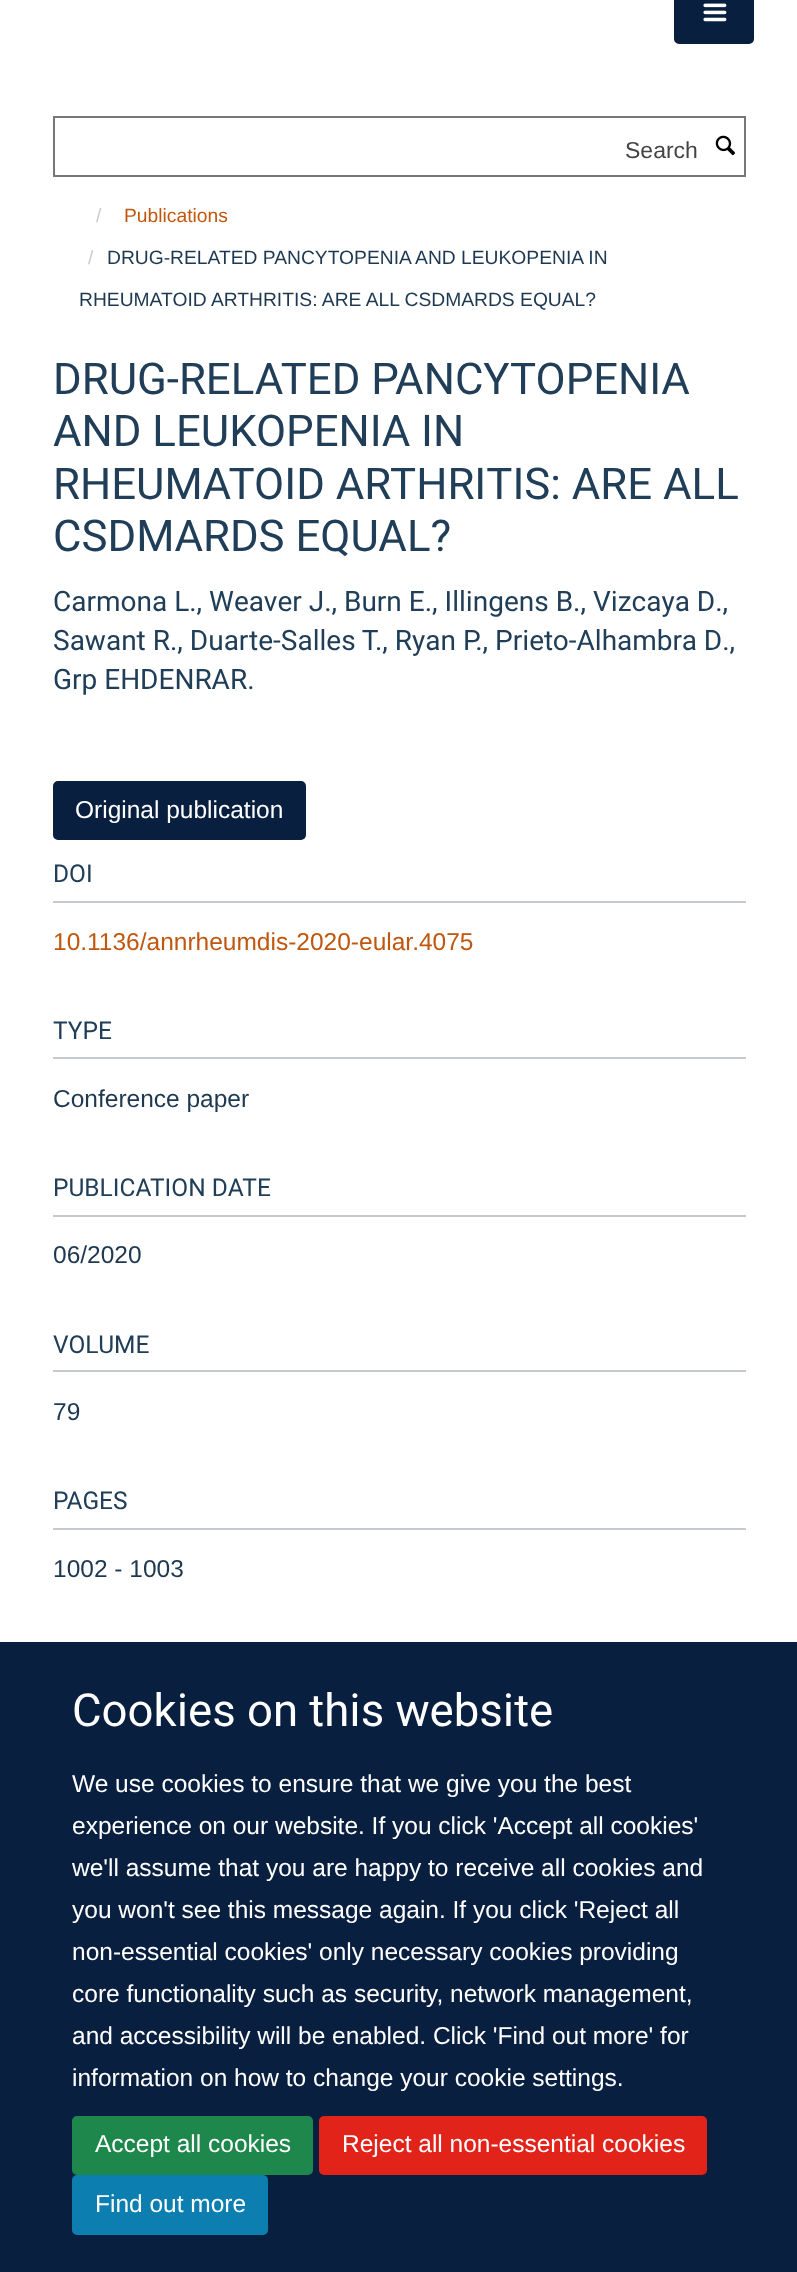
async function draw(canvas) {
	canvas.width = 797;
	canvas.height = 2272;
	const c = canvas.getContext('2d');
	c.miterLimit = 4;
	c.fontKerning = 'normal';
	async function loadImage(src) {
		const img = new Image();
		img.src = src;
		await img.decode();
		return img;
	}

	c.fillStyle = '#fff';
	c.fillRect(0, 0, 797, 2272);
	c.fillStyle = '#091f40';
	c.beginPath();
	c.roundRect(675, -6, 78, 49, 4);
	c.fill();
	c.strokeStyle = '#091f40';
	c.lineWidth = 2;
	c.stroke();
	c.drawImage(await loadImage('img1.png'), 703, 3, 24, 19);
	c.strokeStyle = '#777';
	c.strokeRect(54, 117, 691, 59);
	c.font = '23px Liberation Sans';
	c.fillStyle = '#444';
	c.fillText('Search', 625, 158);
	c.drawImage(await loadImage('img2.png'), 715, 135, 20, 21);
	c.font = '19.25px Liberation Sans';
	c.fillStyle = '#ccc';
	c.fillText('/', 96, 222);
	c.fillStyle = '#c1570e';
	c.fillText('Publications', 124, 222);
	c.fillStyle = '#ccc';
	c.fillText('/', 88, 264);
	c.fillStyle = '#1d3850';
	c.fillText('DRUG-RELATED PANCYTOPENIA AND LEUKOPENIA IN', 107, 264);
	c.fillText('RHEUMATOID ARTHRITIS: ARE ALL CSDMARDS EQUAL?', 79, 306);
	c.font = '43.75px Heebo';
	c.fillStyle = '#203e58';
	for (const [text, x, y] of [
		['DRUG-RELATED PANCYTOPENIA', 53, 394],
		['AND LEUKOPENIA IN', 53, 446],
		['RHEUMATOID ARTHRITIS: ARE ALL', 53, 499],
		['CSDMARDS EQUAL?', 53, 551],
	]) {
		c.fillText(text, x, y);
	}
	c.font = '28px Heebo';
	for (const [text, x, y] of [
		['Carmona L., Weaver J., Burn E., Illingens B., Vizcaya D.,', 53, 611],
		['Sawant R., Duarte-Salles T., Ryan P., Prieto-Alhambra D.,', 53, 650],
		['Grp EHDENRAR.', 53, 689],
	]) {
		c.fillText(text, x, y);
	}
	c.fillStyle = '#091f40';
	c.beginPath();
	c.roundRect(54, 782, 251, 57, 4);
	c.fill();
	c.strokeStyle = '#091f40';
	c.stroke();
	c.font = '24.5px Liberation Sans';
	c.fillStyle = '#fff';
	c.fillText('Original publication', 75, 818);
	c.fillStyle = '#c6cacf';
	c.fillRect(53, 901, 693, 2);
	c.font = '24.5px Heebo';
	c.fillStyle = '#203e58';
	c.fillText('DOI', 53, 882);
	c.font = '24.5px Liberation Sans';
	c.fillStyle = '#c1570e';
	c.fillText('10.1136/annrheumdis-2020-eular.4075', 53, 950);
	c.fillStyle = '#c6cacf';
	c.fillRect(53, 1057, 693, 2);
	c.font = '24.5px Heebo';
	c.fillStyle = '#203e58';
	c.fillText('TYPE', 53, 1039);
	c.font = '24.5px Liberation Sans';
	c.fillStyle = '#1d3850';
	c.fillText('Conference paper', 53, 1107);
	c.fillStyle = '#c6cacf';
	c.fillRect(53, 1215, 693, 2);
	c.font = '24.5px Heebo';
	c.fillStyle = '#203e58';
	c.fillText('PUBLICATION DATE', 53, 1196);
	c.font = '24.5px Liberation Sans';
	c.fillStyle = '#1d3850';
	c.fillText('06/2020', 53, 1263);
	c.fillStyle = '#c6cacf';
	c.fillRect(53, 1370, 693, 2);
	c.font = '24.5px Heebo';
	c.fillStyle = '#203e58';
	c.fillText('VOLUME', 53, 1353);
	c.font = '24.5px Liberation Sans';
	c.fillStyle = '#1d3850';
	c.fillText('79', 53, 1420);
	c.fillStyle = '#c6cacf';
	c.fillRect(53, 1528, 693, 2);
	c.font = '24.5px Heebo';
	c.fillStyle = '#203e58';
	c.fillText('PAGES', 53, 1509);
	c.font = '24.5px Liberation Sans';
	c.fillStyle = '#1d3850';
	c.fillText('1002 - 1003', 53, 1577);
	c.fillStyle = '#091f40';
	c.fillRect(0, 1642, 797, 630);
	c.font = '45.5px Heebo';
	c.fillStyle = '#fff';
	c.fillText('Cookies on this website', 72, 1726);
	c.font = '24.5px Liberation Sans';
	for (const [text, x, y] of [
		['We use cookies to ensure that we give you the best', 72, 1792],
		['experience on our website. If you click \'Accept all cookies\'', 72, 1834],
		['we\'ll assume that you are happy to receive all cookies and', 72, 1876],
		['you won\'t see this message again. If you click \'Reject all', 72, 1918],
		['non-essential cookies\' only necessary cookies providing', 72, 1960],
		['core functionality such as security, network management,', 72, 2002],
		['and accessibility will be enabled. Click \'Find out more\' for', 72, 2044],
		['information on how to change your cookie settings.', 72, 2086],
	]) {
		c.fillText(text, x, y);
	}
	c.fillStyle = '#1e874b';
	c.beginPath();
	c.roundRect(73, 2117, 239, 57, 4);
	c.fill();
	c.strokeStyle = '#1e874b';
	c.stroke();
	c.fillStyle = '#fff';
	c.fillText('Accept all cookies', 95, 2152);
	c.fillStyle = '#e2231a';
	c.beginPath();
	c.roundRect(320, 2117, 386, 57, 4);
	c.fill();
	c.strokeStyle = '#e2231a';
	c.stroke();
	c.fillStyle = '#fff';
	c.fillText('Reject all non-essential cookies', 342, 2152);
	c.fillStyle = '#0d7eb0';
	c.beginPath();
	c.roundRect(73, 2176, 194, 58, 4);
	c.fill();
	c.strokeStyle = '#0d7eb0';
	c.stroke();
	c.fillStyle = '#fff';
	c.fillText('Find out more', 95, 2212);
}

draw(document.querySelector('canvas'));
